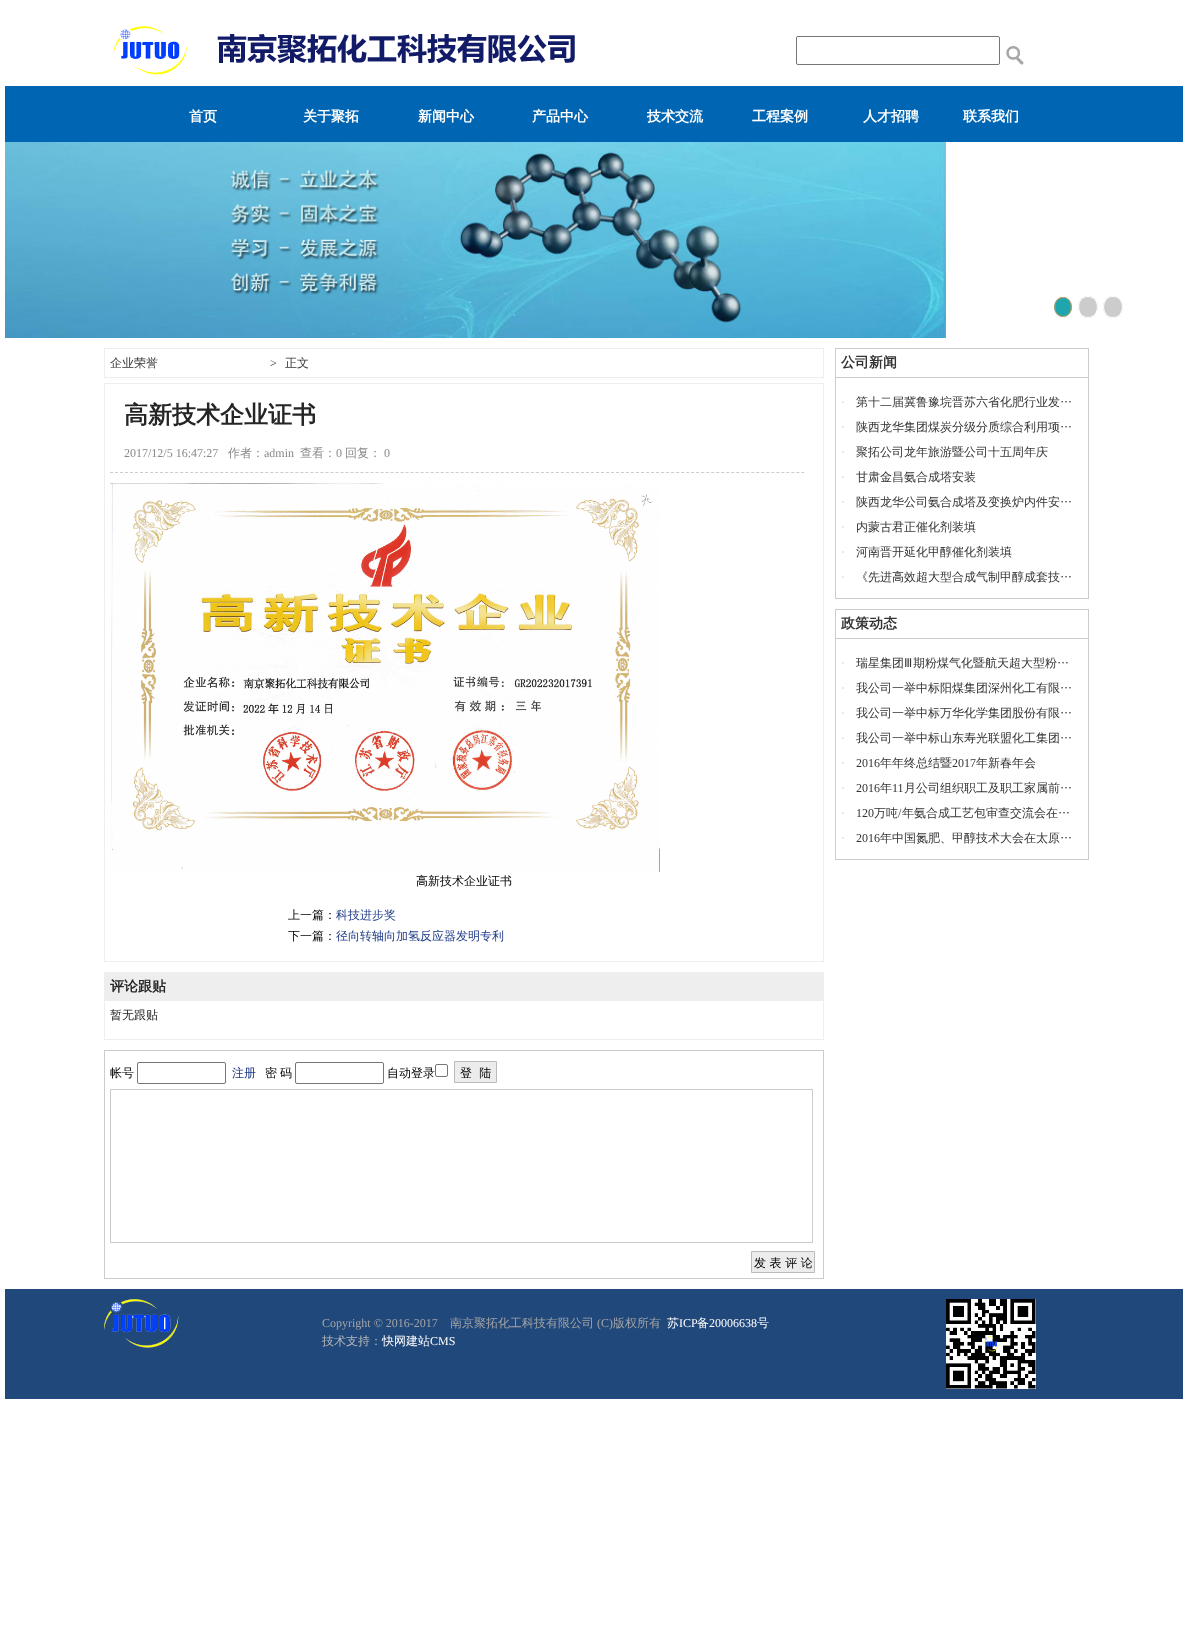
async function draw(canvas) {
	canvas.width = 1188;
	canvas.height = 1646;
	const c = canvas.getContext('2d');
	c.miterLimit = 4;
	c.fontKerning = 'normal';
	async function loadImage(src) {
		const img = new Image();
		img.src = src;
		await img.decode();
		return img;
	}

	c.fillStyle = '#fff';
	c.fillRect(0, 0, 1188, 1646);
	c.drawImage(await loadImage('img1.png'), 113, 26, 462, 49);
	c.beginPath();
	c.roundRect(796.5, 36.5, 203, 28, 1.5);
	c.strokeStyle = '#767676';
	c.stroke();
	c.drawImage(await loadImage('img2.png'), 1006, 46, 18, 19);
	c.fillStyle = '#0065b3';
	c.fillRect(5, 86, 1178, 56);
	c.font = 'bold 14px WenQuanYi Zen Hei';
	c.fillStyle = '#fff';
	for (const [text, x, y] of [
		['首页', 189, 121],
		['关于聚拓', 303, 121],
		['新闻中心', 418, 121],
		['产品中心', 532, 121],
		['技术交流', 647, 121],
		['工程案例', 752, 121],
		['人才招聘', 863, 121],
		['联系我们', 963, 121],
	]) {
		c.fillText(text, x, y);
	}
	c.drawImage(await loadImage('img3.png'), 5, 142, 941, 196);
	c.fillStyle = '#1fa5ad';
	c.beginPath();
	c.ellipse(1063, 307, 9, 10, 0, 0, 2 * Math.PI);
	c.fill();
	c.beginPath();
	c.moveTo(1063, 297.5);
	c.bezierCurveTo(1074, 297.5, 1074, 316.5, 1063, 316.5);
	c.bezierCurveTo(1052, 316.5, 1052, 297.5, 1063, 297.5);
	c.closePath();
	c.strokeStyle = '#d19e59';
	c.stroke();
	c.fillStyle = '#ccc';
	c.beginPath();
	c.ellipse(1088, 307, 10, 11, 0, 0, 2 * Math.PI);
	c.fill();
	c.beginPath();
	c.moveTo(1088, 296.5);
	c.bezierCurveTo(1100.5, 296.5, 1100.5, 317.5, 1088, 317.5);
	c.bezierCurveTo(1075.5, 317.5, 1075.5, 296.5, 1088, 296.5);
	c.closePath();
	c.strokeStyle = '#fff';
	c.stroke();
	c.beginPath();
	c.ellipse(1113, 307, 10, 11, 0, 0, 2 * Math.PI);
	c.fill();
	c.beginPath();
	c.moveTo(1113, 296.5);
	c.bezierCurveTo(1125.5, 296.5, 1125.5, 317.5, 1113, 317.5);
	c.bezierCurveTo(1100.5, 317.5, 1100.5, 296.5, 1113, 296.5);
	c.closePath();
	c.stroke();
	c.strokeStyle = '#eee';
	c.strokeRect(104.5, 348.5, 719, 29);
	c.font = '500 12px WenQuanYi Zen Hei';
	c.fillStyle = '#333';
	c.fillText('企业荣誉', 110, 367);
	c.font = '12px Liberation Serif';
	c.fillText('>', 270, 367);
	c.font = '500 12px WenQuanYi Zen Hei';
	c.fillText('正文', 285, 367);
	c.strokeRect(104.5, 383.5, 719, 578);
	c.font = 'bold 24px WenQuanYi Zen Hei';
	c.fillStyle = '#252525';
	c.fillText('高新技术企业证书', 124, 423);
	c.beginPath();
	c.moveTo(110, 472.5);
	c.lineTo(804, 472.5);
	c.strokeStyle = '#ccc';
	c.setLineDash([3, 2.01]);
	c.stroke();
	c.font = '12px Liberation Serif';
	c.fillStyle = '#888';
	c.fillText('2017/12/5 16:47:27', 124, 457);
	c.font = '500 12px WenQuanYi Zen Hei';
	c.fillText('作者：', 228, 457);
	c.font = '12px Liberation Serif';
	c.fillText('admin', 264, 457);
	c.font = '500 12px WenQuanYi Zen Hei';
	c.fillText('查看：', 300, 457);
	c.font = '12px Liberation Serif';
	c.fillText('0', 336, 457);
	c.font = '500 12px WenQuanYi Zen Hei';
	c.fillText('回复：', 345, 457);
	c.font = '12px Liberation Serif';
	c.fillText('0', 384, 457);
	c.drawImage(await loadImage('img4.png'), 110, 483, 550, 389);
	c.font = '500 12px WenQuanYi Zen Hei';
	c.fillStyle = '#000';
	c.fillText('高新技术企业证书', 416, 885);
	c.fillText('上一篇：', 288, 919);
	c.fillStyle = '#1f3a87';
	c.fillText('科技进步奖', 336, 919);
	c.fillStyle = '#000';
	c.fillText('下一篇：', 288, 940);
	c.fillStyle = '#1f3a87';
	c.fillText('径向转轴向加氢反应器发明专利', 336, 940);
	c.strokeStyle = '#eee';
	c.setLineDash([]);
	c.strokeRect(104.5, 972.5, 719, 67);
	c.fillStyle = '#eee';
	c.fillRect(105, 973, 718, 28);
	c.font = 'bold 14px WenQuanYi Zen Hei';
	c.fillStyle = '#252525';
	c.fillText('评论跟贴', 110, 991);
	c.font = '500 12px WenQuanYi Zen Hei';
	c.fillText('暂无跟贴', 110, 1019);
	c.strokeStyle = '#ccc';
	c.strokeRect(104.5, 1050.5, 719, 228);
	c.fillStyle = '#000';
	c.fillText('帐号', 110, 1077);
	c.beginPath();
	c.roundRect(137.5, 1062.5, 88, 21, 1.5);
	c.strokeStyle = '#767676';
	c.stroke();
	c.fillStyle = '#1f3a87';
	c.fillText('注册', 232, 1077);
	c.fillStyle = '#000';
	c.fillText('密', 265, 1077);
	c.fillText('码', 280, 1077);
	c.beginPath();
	c.roundRect(295.5, 1062.5, 88, 21, 1.5);
	c.stroke();
	c.fillText('自动登录', 387, 1077);
	c.beginPath();
	c.roundRect(435.5, 1064.5, 12, 12, 1.5);
	c.stroke();
	c.fillStyle = '#ececec';
	c.beginPath();
	c.rect(454.5, 1061.5, 42, 21);
	c.fill();
	c.strokeStyle = '#bbb';
	c.stroke();
	c.fillStyle = '#000';
	c.fillText('登  陆', 460, 1077);
	c.strokeStyle = '#ccc';
	c.strokeRect(110.5, 1089.5, 702, 153);
	c.fillStyle = '#ececec';
	c.beginPath();
	c.rect(751.5, 1251.5, 63, 21);
	c.fill();
	c.strokeStyle = '#bbb';
	c.stroke();
	c.fillStyle = '#000';
	c.fillText('发 表 评 论', 754, 1267);
	c.strokeStyle = '#ccc';
	c.strokeRect(835.5, 348.5, 253, 250);
	c.fillStyle = '#ccc';
	c.fillRect(836, 377, 252, 1);
	c.font = 'bold 14px WenQuanYi Zen Hei';
	c.fillStyle = '#333';
	c.fillText('公司新闻', 841, 367);
	c.font = '12px Liberation Serif';
	c.fillStyle = '#ccc';
	c.fillText('·', 841, 406);
	c.font = '500 12px WenQuanYi Zen Hei';
	c.fillStyle = '#333';
	c.fillText('第十二届冀鲁豫垸晋苏六省化肥行业发…', 856, 406);
	c.font = '12px Liberation Serif';
	c.fillStyle = '#ccc';
	c.fillText('·', 841, 431);
	c.font = '500 12px WenQuanYi Zen Hei';
	c.fillStyle = '#333';
	c.fillText('陕西龙华集团煤炭分级分质综合利用项…', 856, 431);
	c.font = '12px Liberation Serif';
	c.fillStyle = '#ccc';
	c.fillText('·', 841, 456);
	c.font = '500 12px WenQuanYi Zen Hei';
	c.fillStyle = '#333';
	c.fillText('聚拓公司龙年旅游暨公司十五周年庆', 856, 456);
	c.font = '12px Liberation Serif';
	c.fillStyle = '#ccc';
	c.fillText('·', 841, 481);
	c.font = '500 12px WenQuanYi Zen Hei';
	c.fillStyle = '#333';
	c.fillText('甘肃金昌氨合成塔安装', 856, 481);
	c.font = '12px Liberation Serif';
	c.fillStyle = '#ccc';
	c.fillText('·', 841, 506);
	c.font = '500 12px WenQuanYi Zen Hei';
	c.fillStyle = '#333';
	c.fillText('陕西龙华公司氨合成塔及变换炉内件安…', 856, 506);
	c.font = '12px Liberation Serif';
	c.fillStyle = '#ccc';
	c.fillText('·', 841, 531);
	c.font = '500 12px WenQuanYi Zen Hei';
	c.fillStyle = '#333';
	c.fillText('内蒙古君正催化剂装填', 856, 531);
	c.font = '12px Liberation Serif';
	c.fillStyle = '#ccc';
	c.fillText('·', 841, 556);
	c.font = '500 12px WenQuanYi Zen Hei';
	c.fillStyle = '#333';
	c.fillText('河南晋开延化甲醇催化剂装填', 856, 556);
	c.font = '12px Liberation Serif';
	c.fillStyle = '#ccc';
	c.fillText('·', 841, 581);
	c.font = '500 12px WenQuanYi Zen Hei';
	c.fillStyle = '#333';
	c.fillText('《先进高效超大型合成气制甲醇成套技…', 856, 581);
	c.strokeRect(835.5, 609.5, 253, 250);
	c.fillStyle = '#ccc';
	c.fillRect(836, 638, 252, 1);
	c.font = 'bold 14px WenQuanYi Zen Hei';
	c.fillStyle = '#333';
	c.fillText('政策动态', 841, 628);
	c.font = '12px Liberation Serif';
	c.fillStyle = '#ccc';
	c.fillText('·', 841, 667);
	c.font = '500 12px WenQuanYi Zen Hei';
	c.fillStyle = '#333';
	c.fillText('瑞星集团', 856, 667);
	c.font = '12px DejaVu Sans';
	c.fillText('Ⅲ', 904, 667);
	c.font = '500 12px WenQuanYi Zen Hei';
	c.fillText('期粉煤气化暨航天超大型粉…', 913, 667);
	c.font = '12px Liberation Serif';
	c.fillStyle = '#ccc';
	c.fillText('·', 841, 692);
	c.font = '500 12px WenQuanYi Zen Hei';
	c.fillStyle = '#333';
	c.fillText('我公司一举中标阳煤集团深州化工有限…', 856, 692);
	c.font = '12px Liberation Serif';
	c.fillStyle = '#ccc';
	c.fillText('·', 841, 717);
	c.font = '500 12px WenQuanYi Zen Hei';
	c.fillStyle = '#333';
	c.fillText('我公司一举中标万华化学集团股份有限…', 856, 717);
	c.font = '12px Liberation Serif';
	c.fillStyle = '#ccc';
	c.fillText('·', 841, 742);
	c.font = '500 12px WenQuanYi Zen Hei';
	c.fillStyle = '#333';
	c.fillText('我公司一举中标山东寿光联盟化工集团…', 856, 742);
	c.font = '12px Liberation Serif';
	c.fillStyle = '#ccc';
	c.fillText('·', 841, 767);
	c.fillStyle = '#333';
	c.fillText('2016', 856, 767);
	c.font = '500 12px WenQuanYi Zen Hei';
	c.fillText('年年终总结暨', 880, 767);
	c.font = '12px Liberation Serif';
	c.fillText('2017', 952, 767);
	c.font = '500 12px WenQuanYi Zen Hei';
	c.fillText('年新春年会', 976, 767);
	c.font = '12px Liberation Serif';
	c.fillStyle = '#ccc';
	c.fillText('·', 841, 792);
	c.fillStyle = '#333';
	c.fillText('2016', 856, 792);
	c.font = '500 12px WenQuanYi Zen Hei';
	c.fillText('年', 880, 792);
	c.font = '12px Liberation Serif';
	c.fillText('11', 892, 792);
	c.font = '500 12px WenQuanYi Zen Hei';
	c.fillText('月公司组织职工及职工家属前…', 904, 792);
	c.font = '12px Liberation Serif';
	c.fillStyle = '#ccc';
	c.fillText('·', 841, 817);
	c.fillStyle = '#333';
	c.fillText('120', 856, 817);
	c.font = '500 12px WenQuanYi Zen Hei';
	c.fillText('万吨', 874, 817);
	c.font = '12px Liberation Serif';
	c.fillText('/', 898, 817);
	c.font = '500 12px WenQuanYi Zen Hei';
	c.fillText('年氨合成工艺包审查交流会在…', 902, 817);
	c.font = '12px Liberation Serif';
	c.fillStyle = '#ccc';
	c.fillText('·', 841, 842);
	c.fillStyle = '#333';
	c.fillText('2016', 856, 842);
	c.font = '500 12px WenQuanYi Zen Hei';
	c.fillText('年中国氮肥、甲醇技术大会在太原…', 880, 842);
	c.fillStyle = '#20487b';
	c.fillRect(5, 1289, 1178, 110);
	c.drawImage(await loadImage('img5.png'), 104, 1299, 75, 49);
	c.font = '12px Liberation Serif';
	c.fillStyle = '#a4a4a4';
	c.fillText('Copyright © 2016-2017', 322, 1327);
	c.font = '500 12px WenQuanYi Zen Hei';
	c.fillText('南京聚拓化工科技有限公司', 450, 1327);
	c.font = '12px Liberation Serif';
	c.fillText('(C)', 597, 1327);
	c.font = '500 12px WenQuanYi Zen Hei';
	c.fillText('版权所有', 613, 1327);
	c.fillStyle = '#fff';
	c.fillText('苏', 667, 1327);
	c.font = '12px Liberation Serif';
	c.fillText('ICP', 679, 1327);
	c.font = '500 12px WenQuanYi Zen Hei';
	c.fillText('备', 697, 1327);
	c.font = '12px Liberation Serif';
	c.fillText('20006638', 709, 1327);
	c.font = '500 12px WenQuanYi Zen Hei';
	c.fillText('号', 757, 1327);
	c.fillStyle = '#b7b7b7';
	c.fillText('技术支持：', 322, 1345);
	c.fillStyle = '#fff';
	c.fillText('快网建站', 382, 1345);
	c.font = '12px Liberation Serif';
	c.fillText('CMS', 430, 1345);
	c.drawImage(await loadImage('img6.png'), 946, 1299, 90, 90);
}

draw(document.querySelector('canvas'));
